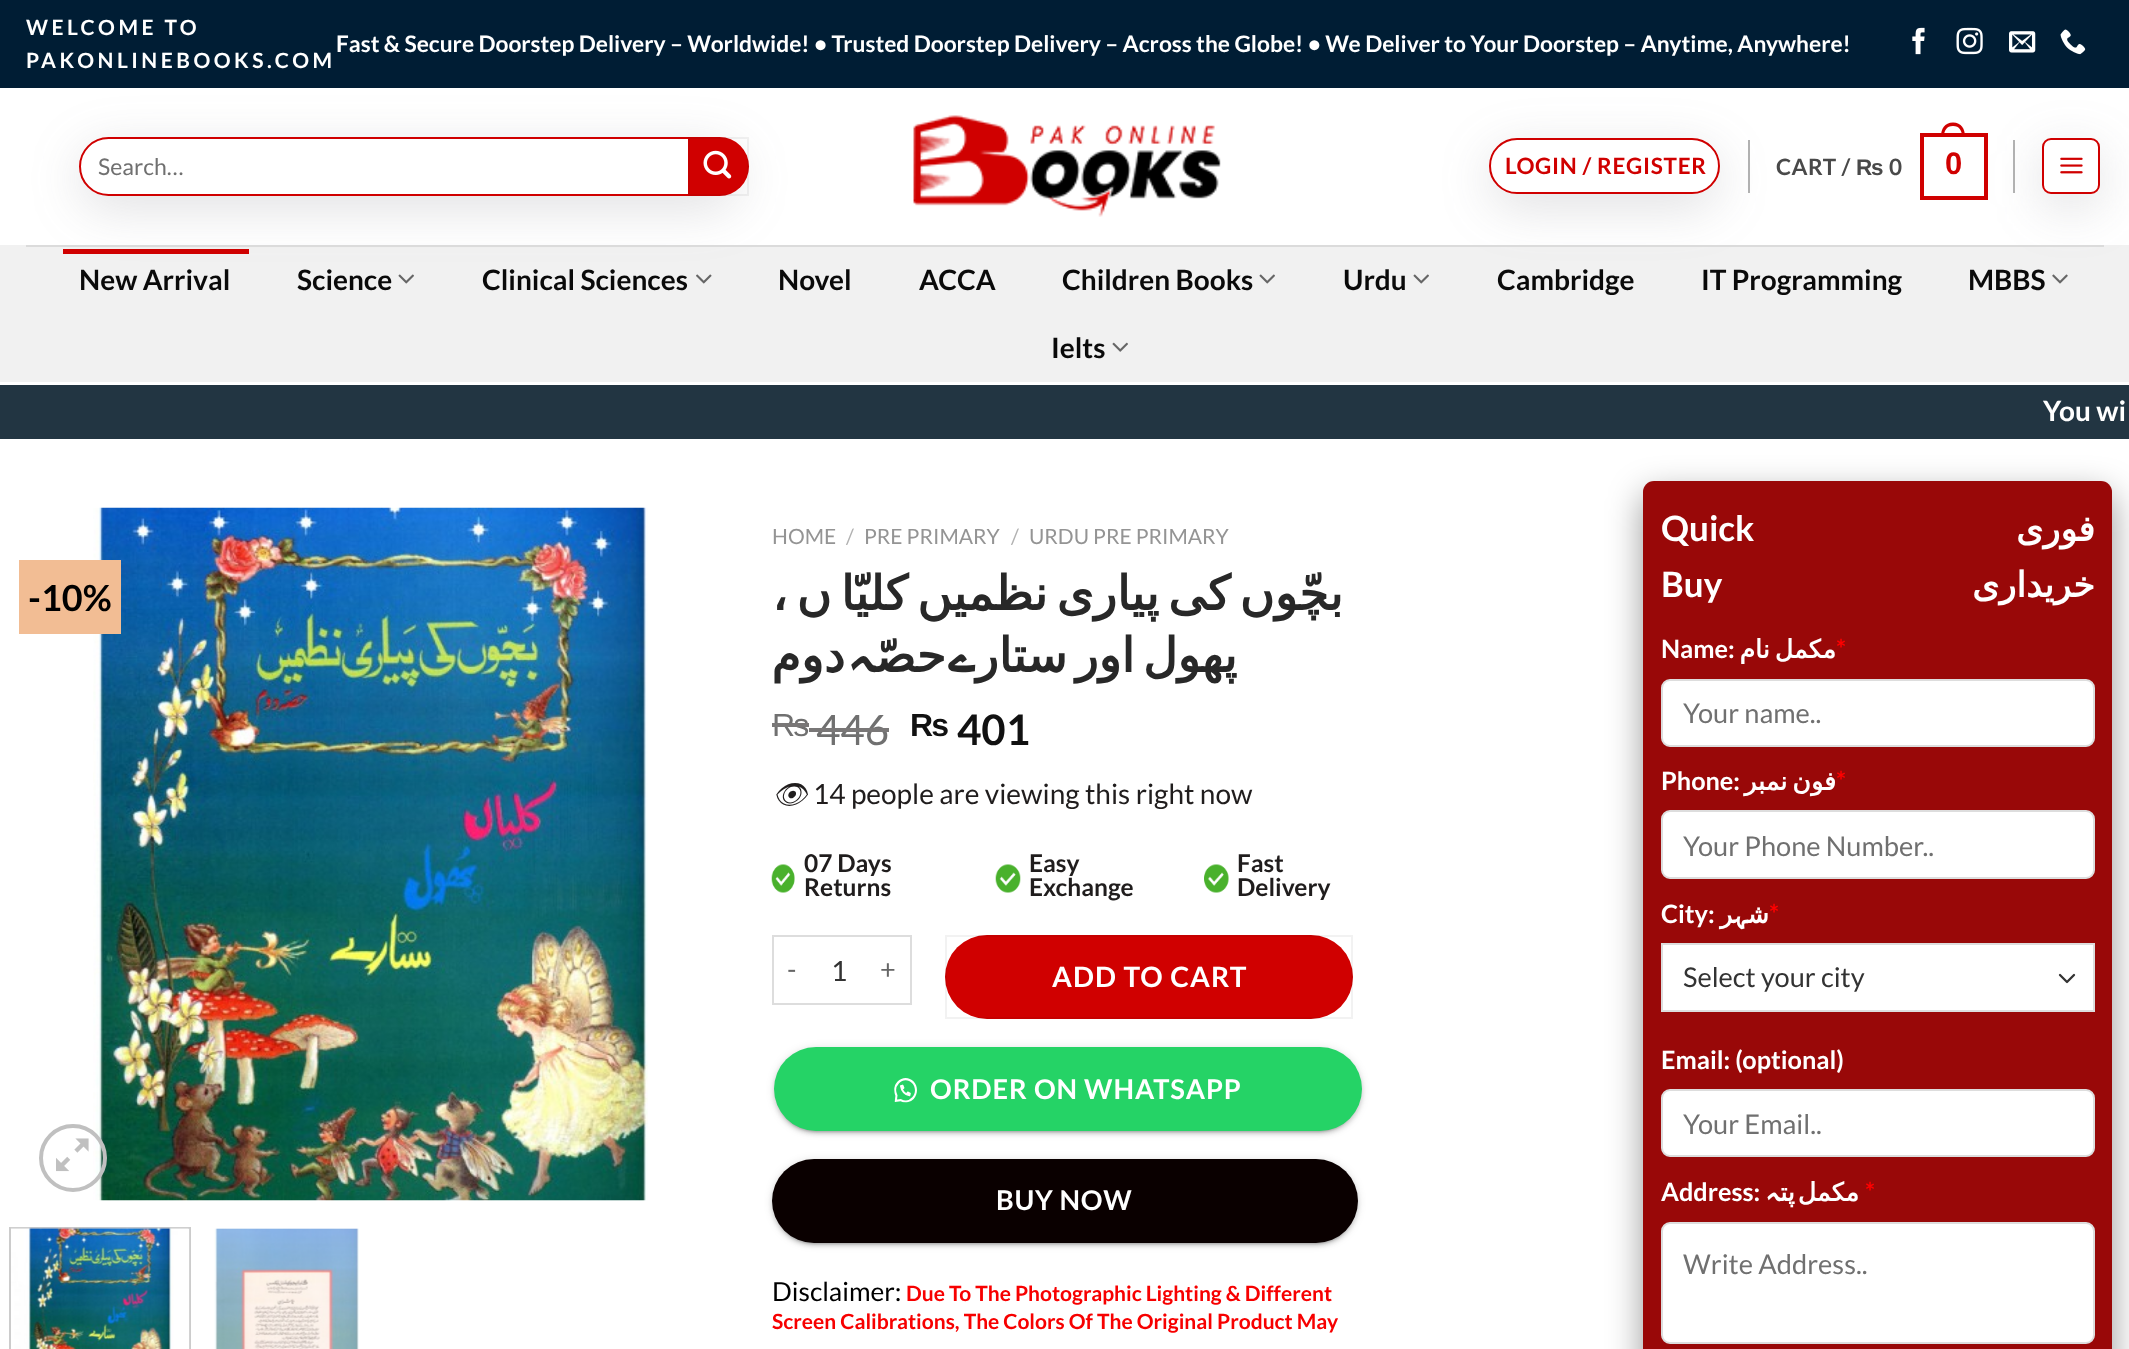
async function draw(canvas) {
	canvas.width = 2129;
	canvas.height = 1349;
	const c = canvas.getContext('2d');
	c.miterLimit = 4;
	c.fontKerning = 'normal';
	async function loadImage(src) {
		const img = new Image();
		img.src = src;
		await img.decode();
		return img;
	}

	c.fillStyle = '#fff';
	c.fillRect(0, 0, 2129, 1349);
	c.fillStyle = '#f1f1f1';
	c.fillRect(0, 245, 2129, 137);
	c.fillStyle = '#d00000';
	c.fillRect(63, 249, 186, 5);
	c.drawImage(await loadImage('img8.png'), 398, 274, 16, 10);
	c.drawImage(await loadImage('img9.png'), 696, 274, 16, 10);
	c.fillStyle = '#64646f33';
	c.filter = 'blur(25.5px)';
	c.beginPath();
	c.roundRect(79, 149, 661, 59, 29.5);
	c.fill();
	c.filter = 'none';
	c.strokeStyle = '#d00000';
	c.lineWidth = 4;
	c.strokeRect(1922, 135, 64, 63);
	c.fillStyle = '#d00000';
	c.beginPath();
	c.moveTo(1953, 122.5);
	c.bezierCurveTo(1961.5, 122.5, 1965, 129, 1965, 136.5);
	c.lineTo(1941, 136.5);
	c.bezierCurveTo(1941, 129, 1944.5, 122.5, 1953, 122.5);
	c.closePath();
	c.moveTo(1953, 126);
	c.bezierCurveTo(1959.5, 126, 1962, 131, 1962, 136.5);
	c.lineTo(1944, 136.5);
	c.bezierCurveTo(1944, 131, 1946.5, 126, 1953, 126);
	c.closePath();
	c.fill('evenodd');
	c.fillStyle = '#b3b3b3';
	c.fillRect(2013, 140, 2, 53);
	c.drawImage(await loadImage('img10.png'), 2052, 274, 16, 10);
	c.fillStyle = '#64646f33';
	c.filter = 'blur(25.5px)';
	c.beginPath();
	c.roundRect(2042, 151, 58, 56, 9);
	c.fill();
	c.filter = 'none';
	c.drawImage(await loadImage('img8.png'), 1413, 274, 16, 10);
	c.filter = 'blur(25.5px)';
	c.beginPath();
	c.roundRect(1489, 151, 231, 56, 28);
	c.fill();
	c.filter = 'none';
	c.fillStyle = '#001d34';
	c.fillRect(0, 0, 2129, 88);
	c.letterSpacing = '3.5px';
	c.font = 'bold 21px Lato';
	c.fillStyle = '#fff';
	c.fillText('WELCOME TO', 26, 35);
	c.fillText('PAKONLINEBOOKS.COM', 26, 68);
	c.letterSpacing = '0px';
	c.font = 'bold 22.75px Lato';
	c.fillText('Fast & Secure Doorstep Delivery – Worldwide! • Trusted Doorstep Delivery – Across the Globe! • We Deliver to Your Doorstep – Anytime, Anywhere!', 336, 52);
	c.drawImage(await loadImage('img1.png'), 1912, 27, 13, 28);
	c.drawImage(await loadImage('img2.png'), 1956, 27, 27, 28);
	c.drawImage(await loadImage('img3.png'), 2009, 31, 27, 22);
	c.drawImage(await loadImage('img4.png'), 2060, 29, 26, 26);
	c.beginPath();
	c.roundRect(80, 138, 659, 57, 28.5);
	c.fill();
	c.lineWidth = 2;
	c.stroke();
	c.font = '23px Lato';
	c.fillStyle = '#707070';
	c.fillText('Search…', 98, 175);
	c.fillStyle = '#d00000';
	c.beginPath();
	c.roundRect(688, 137, 61, 59, [0, 29.5, 29.5, 0]);
	c.fill();
	c.strokeStyle = '#0000000d';
	c.strokeRect(689, 138, 59, 57);
	c.drawImage(await loadImage('img5.png'), 703, 150, 29, 29);
	c.drawImage(await loadImage('img6.png'), 913, 115, 308, 102);
	c.fillStyle = '#b1b1b1';
	c.fillRect(1748, 140, 2, 53);
	c.fillStyle = '#fff';
	c.beginPath();
	c.roundRect(2043, 139, 56, 54, 8);
	c.fill();
	c.strokeStyle = '#d00000';
	c.stroke();
	c.drawImage(await loadImage('img7.png'), 2060, 157, 23, 17);
	c.beginPath();
	c.roundRect(1490, 139, 229, 54, 27);
	c.fill();
	c.stroke();
	c.letterSpacing = '0.7px';
	c.font = 'bold 22.5px Lato';
	c.fillStyle = '#d00000';
	c.fillText('LOGIN / REGISTER', 1505, 174);
	c.letterSpacing = '0.5px';
	c.fillStyle = '#494949';
	c.fillText('CART /', 1776, 175);
	c.font = 'bold 22.5px Liberation Sans';
	c.fillText('₨', 1856, 175);
	c.font = 'bold 22.5px Lato';
	c.fillText('0', 1889, 175);
	c.font = 'bold 31px Liberation Sans';
	c.fillStyle = '#d00000';
	c.fillText('0', 1945, 174);
	c.fillStyle = '#dbdbdb';
	c.fillRect(26, 245, 2078, 2);
	c.letterSpacing = '0px';
	c.font = 'bold 28px Lato';
	c.fillStyle = '#0a0a0a';
	for (const [text, x, y] of [
		['New Arrival', 79, 290],
		['Science', 297, 290],
		['Clinical Sciences', 482, 290],
		['Novel', 778, 290],
		['ACCA', 919, 290],
		['Children Books', 1062, 290],
	]) {
		c.fillText(text, x, y);
	}
	c.drawImage(await loadImage('img8.png'), 1259, 274, 16, 10);
	for (const [text, x, y] of [
		['Urdu', 1343, 290],
		['Cambridge', 1497, 290],
		['IT Programming', 1701, 290],
		['MBBS', 1968, 290],
		['Ielts', 1051, 358],
	]) {
		c.fillText(text, x, y);
	}
	c.drawImage(await loadImage('img11.png'), 1112, 342, 16, 10);
	c.fillStyle = '#223542';
	c.fillRect(0, 385, 2129, 54);
	c.fillStyle = '#fff';
	c.fillText('You wi', 2043, 421);
	c.drawImage(await loadImage('img12.png'), 93, 507, 555, 694);
	c.fillStyle = '#f2bd94';
	c.fillRect(19, 560, 102, 74);
	c.font = 'bold 36px Lato';
	c.fillStyle = '#000';
	c.fillText('-10%', 28, 611);
	c.beginPath();
	c.arc(73, 1158, 32, 0, 2 * Math.PI);
	c.strokeStyle = '#c0c0c0';
	c.lineWidth = 4;
	c.stroke();
	c.drawImage(await loadImage('img13.png'), 56, 1138, 33, 34);
	c.strokeStyle = '#ccc';
	c.lineWidth = 2;
	c.strokeRect(10, 1228, 180, 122);
	c.drawImage(await loadImage('img14.png'), 11, 1227, 179, 122);
	c.drawImage(await loadImage('img15.png'), 214, 1228, 145, 121);
	c.font = '21px Lato';
	c.fillStyle = '#949494';
	c.fillText('HOME', 772, 544);
	c.fillStyle = '#b2b2b2';
	c.fillText('/', 846, 544);
	c.fillStyle = '#949494';
	c.fillText('PRE PRIMARY', 864, 544);
	c.fillStyle = '#b2b2b2';
	c.fillText('/', 1011, 544);
	c.fillStyle = '#949494';
	c.fillText('URDU PRE PRIMARY', 1029, 544);
	c.fillStyle = '#00000066';
	c.filter = 'blur(17.5px)';
	c.beginPath();
	c.roundRect(1643, 494, 469, 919, 11);
	c.fill();
	c.filter = 'none';
	c.fillStyle = '#990808';
	c.beginPath();
	c.roundRect(1643, 481, 469, 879, 11);
	c.fill();
	c.font = 'bold 35px Lato';
	c.fillStyle = '#fff';
	c.fillText('Quick', 1661, 541);
	c.fillText('Buy', 1661, 597);
	c.direction = 'rtl';
	c.font = 'bold 35px DejaVu Sans';
	c.fillText('فوری', 2095, 541);
	c.fillText('خریداری', 2095, 597);
	c.direction = 'ltr';
	c.font = 'bold 25.25px Lato';
	c.fillText('Name:', 1661, 658);
	c.wordSpacing = '-3px';
	c.direction = 'rtl';
	c.font = 'bold 25.25px DejaVu Sans';
	c.fillText('مکمل نام', 1836, 658);
	c.wordSpacing = '0px';
	c.direction = 'ltr';
	c.font = 'bold 25.25px Lato';
	c.fillStyle = '#f00';
	c.fillText('*', 1836, 658);
	c.fillStyle = '#fff';
	c.beginPath();
	c.roundRect(1662, 680, 432, 66, 8);
	c.fill();
	c.strokeStyle = '#ddd';
	c.stroke();
	c.font = '27.2px Lato';
	c.fillStyle = '#707070';
	c.fillText('Your name..', 1683, 723);
	c.font = 'bold 25.25px Lato';
	c.fillStyle = '#fff';
	c.fillText('Phone:', 1661, 790);
	c.wordSpacing = '-3px';
	c.direction = 'rtl';
	c.font = 'bold 25.25px DejaVu Sans';
	c.fillText('فون نمبر', 1836, 790);
	c.wordSpacing = '0px';
	c.direction = 'ltr';
	c.font = 'bold 25.25px Lato';
	c.fillStyle = '#f00';
	c.fillText('*', 1836, 790);
	c.fillStyle = '#fff';
	c.beginPath();
	c.roundRect(1662, 811, 432, 67, 8);
	c.fill();
	c.stroke();
	c.font = '27.2px Lato';
	c.fillStyle = '#707070';
	c.fillText('Your Phone Number..', 1683, 856);
	c.font = 'bold 25.25px Lato';
	c.fillStyle = '#fff';
	c.fillText('City:', 1661, 923);
	c.direction = 'rtl';
	c.font = 'bold 25.25px DejaVu Sans';
	c.fillText('‍ر', 1734, 923);
	c.font = 'bold 25.25px Cascadia Code';
	c.fillText('‍ہ‍', 1748, 923);
	c.font = 'bold 25.25px DejaVu Sans';
	c.fillText('ش‍', 1769, 923);
	c.direction = 'ltr';
	c.font = 'bold 25.25px Lato';
	c.fillStyle = '#f00';
	c.fillText('*', 1769, 923);
	c.fillStyle = '#fff';
	c.fillRect(1663, 945, 430, 65);
	c.beginPath();
	c.moveTo(2060, 975);
	c.lineTo(2067, 982);
	c.lineTo(2074, 975);
	c.strokeStyle = '#333';
	c.lineWidth = 2.3;
	c.lineCap = 'round';
	c.lineJoin = 'round';
	c.stroke();
	c.strokeStyle = '#ddd';
	c.lineWidth = 2;
	c.lineJoin = 'miter';
	c.strokeRect(1662, 944, 432, 67);
	c.font = '27.2px Lato';
	c.fillStyle = '#333';
	c.fillText('Select your city', 1683, 987);
	c.font = 'bold 25.25px Lato';
	c.fillStyle = '#fff';
	c.fillText('Email: (optional)', 1661, 1069);
	c.beginPath();
	c.roundRect(1662, 1090, 432, 66, 8);
	c.fill();
	c.stroke();
	c.font = '27.2px Lato';
	c.fillStyle = '#707070';
	c.fillText('Your Email..', 1683, 1134);
	c.font = 'bold 25.25px Lato';
	c.fillStyle = '#fff';
	c.fillText('Address:', 1661, 1201);
	c.direction = 'rtl';
	c.font = 'bold 25.25px Cascadia Code';
	c.fillText('‍ہ', 1780, 1201);
	c.wordSpacing = '-5px';
	c.font = 'bold 25.25px DejaVu Sans';
	c.fillText('مکمل پت‍', 1859, 1201);
	c.wordSpacing = '0px';
	c.direction = 'ltr';
	c.font = 'bold 25.25px Lato';
	c.fillStyle = '#f00';
	c.fillText('*', 1865, 1201);
	c.fillStyle = '#fff';
	c.beginPath();
	c.roundRect(1662, 1223, 432, 120, 8);
	c.fill();
	c.stroke();
	c.font = '27.2px Lato';
	c.fillStyle = '#707070';
	c.fillText('Write Address..', 1683, 1274);
	c.wordSpacing = '-6px';
	c.direction = 'rtl';
	c.font = 'bold 47.6px DejaVu Sans';
	c.fillStyle = '#282828';
	c.fillText('بچّوں کی پیاری نظمیں کلیّا ں ،', 1343, 610);
	c.wordSpacing = '0px';
	c.fillText('دوم', 845, 672);
	c.font = 'bold 47.6px Cascadia Code';
	c.fillText('‍ہ', 875, 672);
	c.font = 'bold 47.6px DejaVu Sans';
	c.fillText('حصّ‍', 946, 672);
	c.font = 'bold 47.6px Cascadia Code';
	c.fillText('ے', 976, 672);
	c.wordSpacing = '-7px';
	c.font = 'bold 47.6px DejaVu Sans';
	c.fillText('پھول اور ستار', 1237, 672);
	c.wordSpacing = '0px';
	c.direction = 'ltr';
	c.font = '32px Liberation Sans';
	c.fillStyle = '#707070';
	c.fillText('₨', 772, 736);
	c.fillStyle = '#797777';
	c.fillRect(772, 723, 37, 4);
	c.font = '42px Lato';
	c.fillStyle = '#707070';
	c.fillText('446', 816, 745);
	c.fillStyle = '#797777';
	c.fillRect(809, 728, 80, 4);
	c.font = 'bold 32px Liberation Sans';
	c.fillStyle = '#111';
	c.fillText('₨', 910, 736);
	c.font = 'bold 42px Lato';
	c.fillText('401', 957, 745);
	c.font = 'italic 28px Noto Emoji';
	c.fillStyle = '#201d1d';
	c.fillText('👁', 772, 804);
	c.font = '28px Lato';
	c.fillText('14 people are viewing this right now', 813, 804);
	c.drawImage(await loadImage('img16.png'), 771, 864, 24, 29);
	c.font = 'bold 24.5px Lato';
	c.fillText('07 Days', 804, 872);
	c.fillText('Returns', 804, 896);
	c.drawImage(await loadImage('img17.png'), 995, 864, 26, 29);
	c.fillText('Easy', 1029, 872);
	c.fillText('Exchange', 1029, 896);
	c.drawImage(await loadImage('img18.png'), 1204, 864, 25, 29);
	c.fillText('Fast', 1237, 872);
	c.fillText('Delivery', 1237, 896);
	for (const [x, y, w, h, color] of [
		[772, 935, 140, 2, '#ddd'],
		[772, 1003, 94, 2, '#ddd'],
		[772, 935, 2, 70, '#ddd'],
	]) {
		c.fillStyle = color;
		c.fillRect(x, y, w, h);
	}
	c.letterSpacing = '0.75px';
	c.font = '27.2px Lato';
	c.fillStyle = '#666';
	c.fillText('-', 787, 979);
	c.letterSpacing = '0px';
	c.font = '28px Lato';
	c.fillStyle = '#333';
	c.fillText('1', 831, 981);
	c.fillStyle = '#ddd';
	c.fillRect(910, 935, 2, 70);
	c.fillRect(866, 1003, 46, 2);
	c.letterSpacing = '0.75px';
	c.font = '27.2px Lato';
	c.fillStyle = '#666';
	c.fillText('+', 880, 979);
	c.fillStyle = '#d00000';
	c.beginPath();
	c.roundRect(945, 935, 408, 84, 42);
	c.fill();
	c.strokeStyle = '#0000000d';
	c.strokeRect(946, 936, 406, 82);
	c.letterSpacing = '1.1px';
	c.font = 'bold 28px Lato';
	c.fillStyle = '#fff';
	c.fillText('ADD TO CART', 1052, 987);
	c.fillStyle = '#00000033';
	c.filter = 'blur(1px)';
	c.beginPath();
	c.roundRect(777, 1055, 581, 77, 38.5);
	c.fill();
	c.filter = 'none';
	c.fillStyle = '#0000001f';
	c.filter = 'blur(4.5px)';
	c.beginPath();
	c.roundRect(774, 1048, 588, 84, 42);
	c.fill();
	c.filter = 'none';
	c.fillStyle = '#00000024';
	c.filter = 'blur(2px)';
	c.beginPath();
	c.roundRect(774, 1050, 588, 84, 42);
	c.fill();
	c.filter = 'none';
	c.fillStyle = '#25d366';
	c.beginPath();
	c.roundRect(774, 1047, 588, 84, 42);
	c.fill();
	c.drawImage(await loadImage('img19.png'), 894, 1078, 23, 25);
	c.letterSpacing = '0.9px';
	c.font = 'bold 27.2px Lato';
	c.fillStyle = '#fff';
	c.fillText('ORDER ON WHATSAPP', 930, 1099);
	c.fillStyle = '#00000033';
	c.filter = 'blur(1px)';
	c.beginPath();
	c.roundRect(775, 1167, 580, 77, 38.5);
	c.fill();
	c.filter = 'none';
	c.fillStyle = '#0000001f';
	c.filter = 'blur(4.5px)';
	c.beginPath();
	c.roundRect(772, 1160, 586, 84, 42);
	c.fill();
	c.filter = 'none';
	c.fillStyle = '#00000024';
	c.filter = 'blur(2px)';
	c.beginPath();
	c.roundRect(772, 1162, 586, 84, 42);
	c.fill();
	c.filter = 'none';
	c.fillStyle = '#0a0000';
	c.beginPath();
	c.roundRect(772, 1159, 586, 84, 42);
	c.fill();
	c.letterSpacing = '0.75px';
	c.fillStyle = '#fff';
	c.fillText('BUY NOW', 996, 1210);
	c.letterSpacing = '0px';
	c.font = '26.25px Lato';
	c.fillStyle = '#000';
	c.fillText('Disclaimer:', 772, 1301);
	c.font = 'bold 21px Lato';
	c.fillStyle = '#f70000';
	c.fillText('Due To The Photographic Lighting & Different', 906, 1301);
	c.fillText('Screen Calibrations, The Colors Of The Original Product May', 772, 1329);
}

draw(document.querySelector('canvas'));
